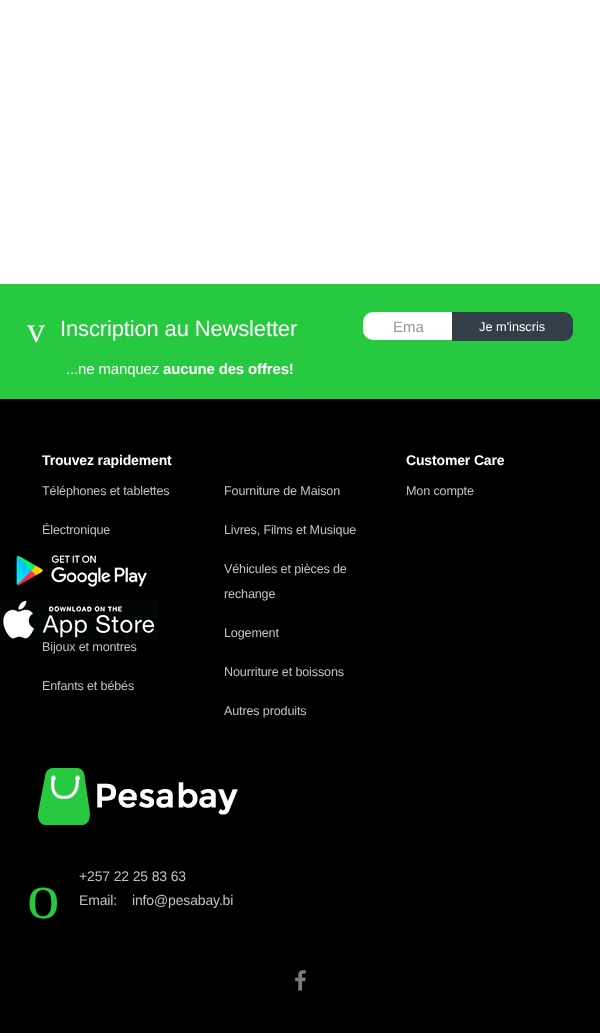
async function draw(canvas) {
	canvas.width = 600;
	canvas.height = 1033;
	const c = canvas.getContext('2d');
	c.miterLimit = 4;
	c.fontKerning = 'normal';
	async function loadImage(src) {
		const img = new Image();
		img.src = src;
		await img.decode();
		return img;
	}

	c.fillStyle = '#fff';
	c.fillRect(0, 0, 600, 1033);
	c.fillStyle = '#26c93f';
	c.fillRect(0, 284, 600, 115);
	c.letterSpacing = '-0.15px';
	c.font = '36px Liberation Serif';
	c.fillStyle = '#fff';
	c.fillText('v', 27, 342);
	c.font = '22px Liberation Sans';
	c.fillText('Inscription au Newsletter', 60, 336);
	c.font = '15px Liberation Sans';
	c.fillText('...ne manquez', 66, 374);
	c.font = 'bold 15px Liberation Sans';
	c.fillText('aucune des offres!', 163, 374);
	c.beginPath();
	c.roundRect(363, 312, 90, 28, [10, 0, 0, 10]);
	c.fill();
	c.letterSpacing = '0px';
	c.font = '15px Liberation Sans';
	c.fillStyle = '#999';
	c.fillText('Ema', 393, 332);
	c.fillStyle = '#333e48';
	c.beginPath();
	c.roundRect(452, 312, 121, 29, [0, 9, 9, 0]);
	c.fill();
	c.font = '12.75px Liberation Sans';
	c.fillStyle = '#fff';
	c.fillText('Je m\'inscris', 479, 331);
	c.fillStyle = '#000';
	c.fillRect(0, 399, 600, 634);
	c.letterSpacing = '-0.15px';
	c.font = 'bold 14px Liberation Sans';
	c.fillStyle = '#fff';
	c.fillText('Trouvez rapidement', 42, 465);
	c.font = '12.6px Liberation Sans';
	c.fillStyle = '#c1c1c1';
	for (const [text, x, y] of [
		['Téléphones et tablettes', 42, 495],
		['Électronique', 42, 534],
		['Bijoux et montres', 42, 651],
		['Enfants et bébés', 42, 690],
	]) {
		c.fillText(text, x, y);
	}
	c.font = 'bold 14px Liberation Sans';
	c.fillStyle = '#fff';
	c.fillText('Customer Care', 406, 465);
	c.font = '12.6px Liberation Sans';
	c.fillStyle = '#c1c1c1';
	for (const [text, x, y] of [
		['Mon compte', 406, 495],
		['Fourniture de Maison', 224, 495],
		['Livres, Films et Musique', 224, 534],
		['Véhicules et pièces de', 224, 573],
		['rechange', 224, 598],
		['Logement', 224, 637],
		['Nourriture et boissons', 224, 676],
		['Autres produits', 224, 715],
	]) {
		c.fillText(text, x, y);
	}
	c.drawImage(await loadImage('img1.png'), 38, 768, 200, 57);
	c.font = '65px Liberation Serif';
	c.fillStyle = '#26c93f';
	c.fillText('o', 27, 918);
	c.font = '14px Liberation Sans';
	c.fillStyle = '#c1c1c1';
	for (const [text, x, y] of [
		['+257 22 25 83 63', 79, 881],
		['Email:', 79, 905],
		['info@pesabay.bi', 132, 905],
	]) {
		c.fillText(text, x, y);
	}
	c.drawImage(await loadImage('img2.png'), 295, 970, 11, 21);
	c.drawImage(await loadImage('img3.png'), 16, 555, 131, 32);
	c.drawImage(await loadImage('img4.png'), 0, 600, 158, 40);
}

draw(document.querySelector('canvas'));
